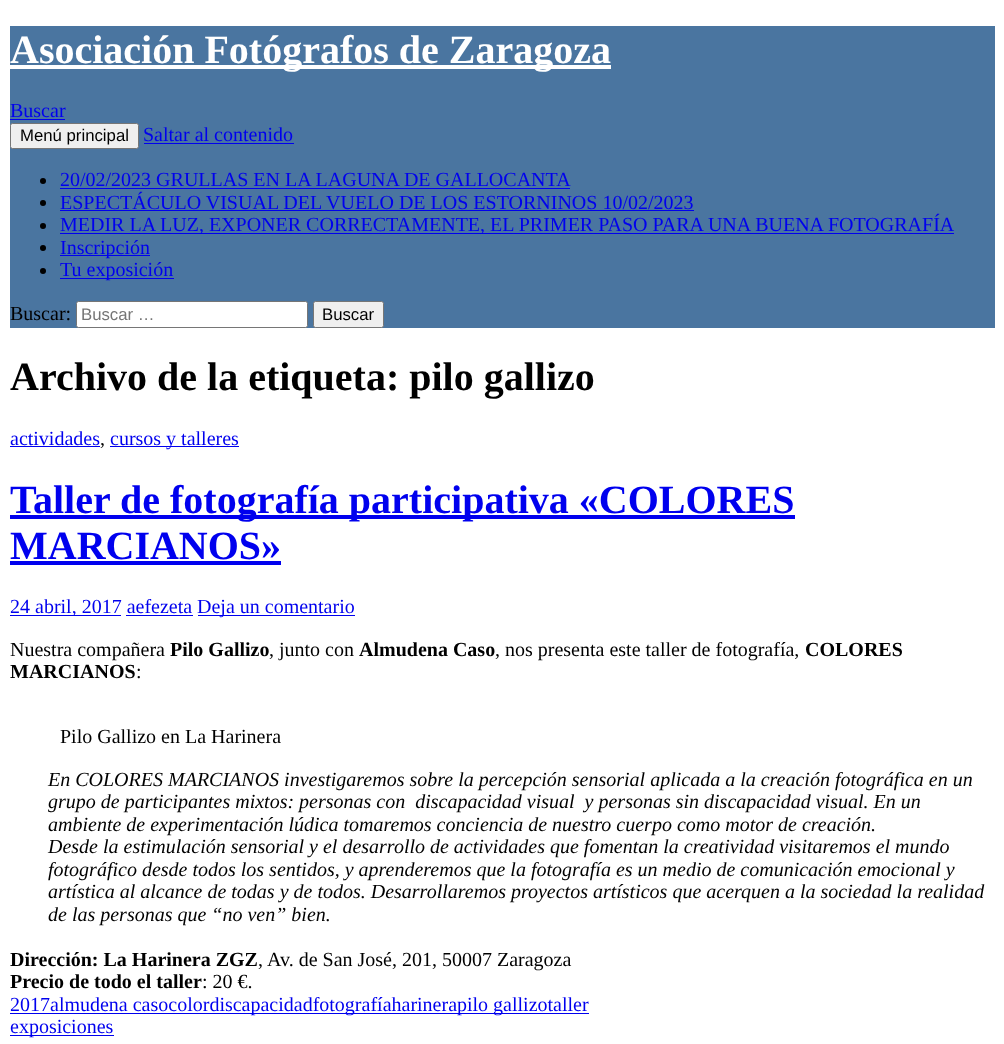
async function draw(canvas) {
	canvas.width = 1004;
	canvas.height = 1044;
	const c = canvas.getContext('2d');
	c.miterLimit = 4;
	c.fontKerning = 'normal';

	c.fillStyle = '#fff';
	c.fillRect(0, 0, 1004, 1044);
	c.fillStyle = '#4a75a0';
	c.fillRect(10, 26, 985, 302);
	c.fillStyle = '#fff';
	c.fillRect(10, 65, 601, 4);
	c.font = 'bold 40px Liberation Serif';
	c.fillText('Asociación Fotógrafos de Zaragoza', 10, 63);
	c.font = '20px Liberation Serif';
	c.fillStyle = '#00e';
	c.fillText('Buscar', 10, 117);
	c.fillRect(10, 119, 55, 1);
	c.fillStyle = '#efefef';
	c.beginPath();
	c.roundRect(10.5, 123.5, 128, 25, 2);
	c.fill();
	c.strokeStyle = '#767676';
	c.stroke();
	c.font = '16.75px Liberation Sans';
	c.fillStyle = '#000';
	c.fillText('Menú principal', 20, 141);
	c.font = '20px Liberation Serif';
	c.fillStyle = '#00e';
	c.fillText('Saltar al contenido', 143, 141);
	c.fillRect(144, 143, 150, 1);
	c.fillStyle = '#000';
	c.beginPath();
	c.arc(43, 181, 3, 0, 2 * Math.PI);
	c.fill();
	c.fillStyle = '#00e';
	c.fillText('20/02/2023 GRULLAS EN LA LAGUNA DE GALLOCANTA', 60, 186);
	c.fillRect(60, 188, 510, 1);
	c.fillStyle = '#000';
	c.beginPath();
	c.arc(43, 203, 3, 0, 2 * Math.PI);
	c.fill();
	c.fillStyle = '#00e';
	c.fillText('ESPECTÁCULO VISUAL DEL VUELO DE LOS ESTORNINOS 10/02/2023', 60, 209);
	c.fillRect(60, 210, 634, 1);
	c.fillStyle = '#000';
	c.beginPath();
	c.arc(43, 226, 3, 0, 2 * Math.PI);
	c.fill();
	c.fillStyle = '#00e';
	c.fillRect(60, 233, 894, 1);
	c.fillText('MEDIR LA LUZ, EXPONER CORRECTAMENTE, EL PRIMER PASO PARA UNA BUENA FOTOGRAFÍA', 60, 231);
	c.fillStyle = '#000';
	c.beginPath();
	c.arc(43, 248, 3, 0, 2 * Math.PI);
	c.fill();
	c.fillStyle = '#00e';
	c.fillRect(60, 255, 90, 1);
	c.fillText('Inscripción', 60, 254);
	c.fillStyle = '#000';
	c.beginPath();
	c.arc(43, 271, 3, 0, 2 * Math.PI);
	c.fill();
	c.fillStyle = '#00e';
	c.fillRect(60, 278, 114, 1);
	c.fillText('Tu exposición', 60, 276);
	c.fillStyle = '#000';
	c.fillText('Buscar:', 10, 320);
	c.fillStyle = '#fff';
	c.beginPath();
	c.roundRect(76.5, 301.5, 231, 26, 2);
	c.fill();
	c.stroke();
	c.font = '16.75px Liberation Sans';
	c.fillStyle = '#757575';
	c.fillText('Buscar …', 81, 320);
	c.fillStyle = '#efefef';
	c.beginPath();
	c.roundRect(313.5, 301.5, 70, 26, 2);
	c.fill();
	c.stroke();
	c.fillStyle = '#000';
	c.fillText('Buscar', 322, 320);
	c.font = 'bold 40px Liberation Serif';
	c.fillText('Archivo de la etiqueta: pilo gallizo', 10, 390);
	c.font = '20px Liberation Serif';
	c.fillStyle = '#00e';
	c.fillText('actividades', 10, 445);
	c.fillStyle = '#000';
	c.fillText(',', 100, 445);
	c.fillStyle = '#00e';
	c.fillRect(10, 446, 90, 1);
	c.fillRect(110, 446, 129, 1);
	c.fillText('cursos y talleres', 110, 445);
	c.fillRect(10, 515, 785, 4);
	c.font = 'bold 40px Liberation Serif';
	c.fillText('Taller de fotografía participativa «COLORES', 10, 513);
	c.fillText('MARCIANOS»', 10, 559);
	c.fillRect(10, 561, 271, 4);
	c.fillRect(10, 615, 111, 1);
	c.font = '20px Liberation Serif';
	c.fillText('24 abril, 2017 aefezeta', 10, 613);
	c.fillRect(198, 615, 157, 1);
	c.fillText('Deja un comentario', 197, 613);
	c.fillRect(126, 615, 67, 1);
	c.fillStyle = '#000';
	c.fillText('Nuestra compañera', 10, 656);
	c.font = 'bold 20px Liberation Serif';
	c.fillText('Pilo Gallizo', 170, 656);
	c.font = '20px Liberation Serif';
	c.fillText(', junto con', 269, 656);
	c.font = 'bold 20px Liberation Serif';
	c.fillText('Almudena Caso', 359, 656);
	c.font = '20px Liberation Serif';
	c.fillText(', nos presenta este taller de fotografía,', 495, 656);
	c.font = 'bold 20px Liberation Serif';
	c.fillText('COLORES', 805, 656);
	c.fillText('MARCIANOS', 10, 678);
	c.font = '20px Liberation Serif';
	c.fillText(':', 136, 678);
	c.fillText('Pilo Gallizo en La Harinera', 60, 743);
	c.font = 'italic 20px Liberation Serif';
	for (const [text, x, y] of [
		['En COLORES MARCIANOS investigaremos sobre la percepción sensorial aplicada a la creación fotográfica en un', 48, 786],
		['grupo de participantes mixtos: personas con  discapacidad visual  y personas sin discapacidad visual. En un', 48, 808],
		['ambiente de experimentación lúdica tomaremos conciencia de nuestro cuerpo como motor de creación.', 48, 831],
		['Desde la estimulación sensorial y el desarrollo de actividades que fomentan la creatividad visitaremos el mundo', 48, 853],
		['fotográfico desde todos los sentidos, y aprenderemos que la fotografía es un medio de comunicación emocional y', 48, 876],
		['artística al alcance de todas y de todos. Desarrollaremos proyectos artísticos que acerquen a la sociedad la realidad', 48, 898],
		['de las personas que “no ven” bien.', 48, 921],
	]) {
		c.fillText(text, x, y);
	}
	c.font = 'bold 20px Liberation Serif';
	c.fillText('Dirección: La Harinera ZGZ', 10, 966);
	c.font = '20px Liberation Serif';
	c.fillText(',', 258, 966);
	c.fillText('Av. de San José, 201, 50007 Zaragoza', 267, 966);
	c.font = 'bold 20px Liberation Serif';
	c.fillText('Precio de todo el taller', 10, 988);
	c.font = '20px Liberation Serif';
	c.fillText(': 20 €.', 202, 988);
	c.fillStyle = '#00e';
	c.fillRect(10, 1013, 381, 1);
	c.fillText('2017almudena casocolordiscapacidadfotografíaharinera', 10, 1011);
	c.fillRect(391, 1013, 198, 1);
	c.fillText('pilo gallizotaller', 457, 1011);
	c.fillRect(10, 1035, 104, 1);
	c.fillText('exposiciones', 10, 1033);
}

draw(document.querySelector('canvas'));
